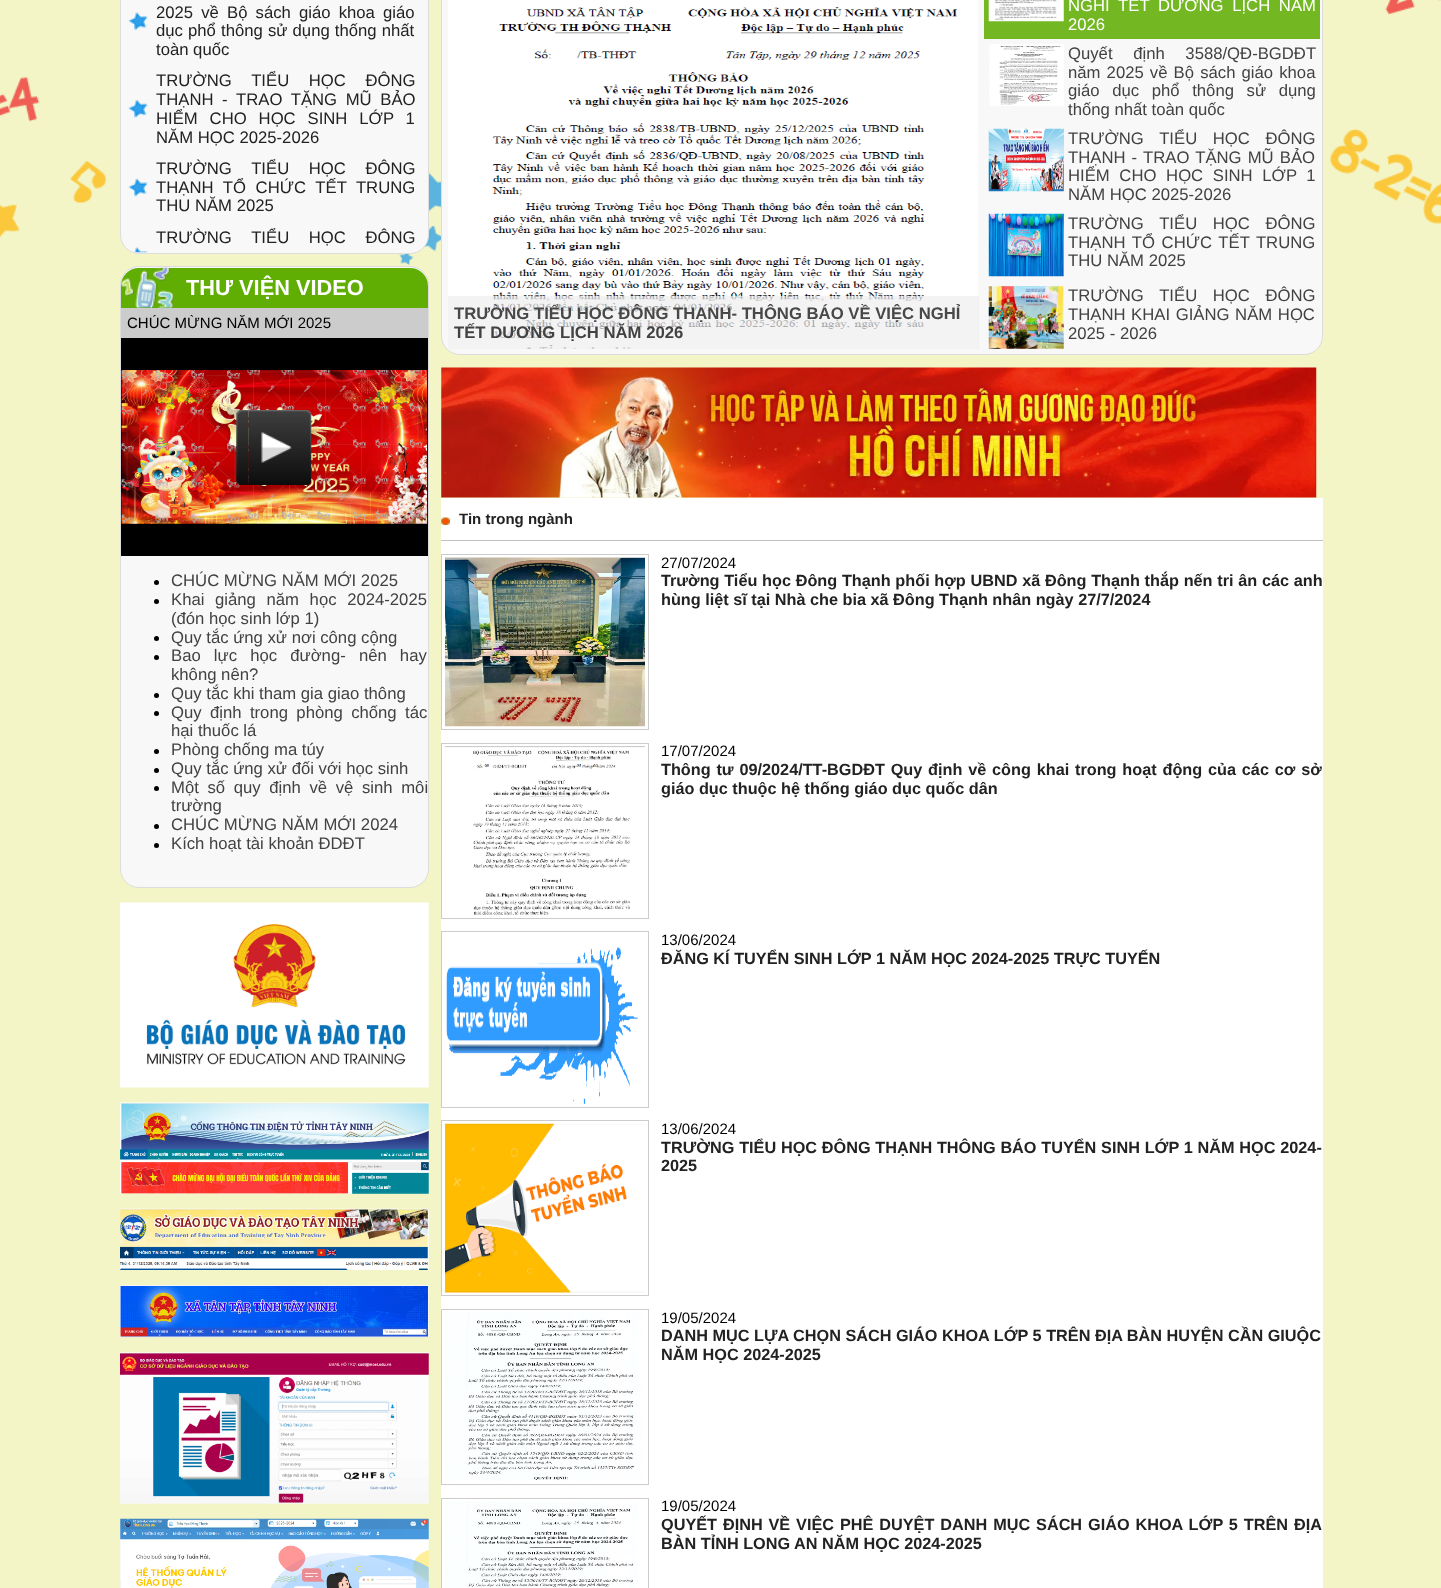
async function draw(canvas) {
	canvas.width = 1441;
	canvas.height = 1588;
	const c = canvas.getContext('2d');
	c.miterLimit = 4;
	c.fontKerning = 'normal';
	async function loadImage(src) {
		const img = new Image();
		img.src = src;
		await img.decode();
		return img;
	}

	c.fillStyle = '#f3f5c6';
	c.fillRect(0, 0, 1441, 1588);
	c.drawImage(await loadImage('img1.png'), 0, 0, 1441, 265);
	c.fillStyle = '#f8f8f8';
	c.beginPath();
	c.roundRect(120.5, -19.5, 308, 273, 18.5);
	c.fill();
	c.strokeStyle = '#ddd';
	c.stroke();
	c.drawImage(await loadImage('img2.png'), 128, 12, 20, 19);
	c.wordSpacing = '3.5px';
	c.font = '16.7px Liberation Sans';
	c.fillStyle = '#222';
	c.fillText('2025 về Bộ sách giáo khoa giáo', 156, 18);
	c.wordSpacing = '0.5px';
	c.fillText('dục phổ thông sử dụng thống nhất', 156, 36);
	c.wordSpacing = '0px';
	c.fillText('toàn quốc', 156, 55);
	c.drawImage(await loadImage('img3.png'), 128, 100, 20, 18);
	c.wordSpacing = '15px';
	c.fillText('TRƯỜNG TIỂU HỌC ĐÔNG', 156, 86);
	c.wordSpacing = '4px';
	c.fillText('THẠNH - TRAO TẶNG MŨ BẢO', 156, 105);
	c.wordSpacing = '7.25px';
	c.fillText('HIỂM CHO HỌC SINH LỚP 1', 156, 124);
	c.wordSpacing = '0px';
	c.fillText('NĂM HỌC 2025-2026', 156, 143);
	c.drawImage(await loadImage('img4.png'), 128, 178, 20, 19);
	c.wordSpacing = '15px';
	c.fillText('TRƯỜNG TIỂU HỌC ĐÔNG', 156, 174);
	c.wordSpacing = '5px';
	c.fillText('THẠNH TỔ CHỨC TẾT TRUNG', 156, 193);
	c.wordSpacing = '0px';
	c.fillText('THU NĂM 2025', 156, 211);
	c.drawImage(await loadImage('img5.png'), 134, 247, 14, 6);
	c.wordSpacing = '15px';
	c.fillText('TRƯỜNG TIỂU HỌC ĐÔNG', 156, 243);
	c.fillStyle = '#f8f8f8';
	c.beginPath();
	c.roundRect(120.5, 266.5, 308, 621, 18.5);
	c.fill();
	c.stroke();
	c.fillStyle = '#60ae04';
	c.beginPath();
	c.roundRect(121, 268, 307, 40, [18, 18, 0, 0]);
	c.fill();
	c.drawImage(await loadImage('img6.png'), 121, 267, 53, 41);
	c.wordSpacing = '0px';
	c.font = 'bold 21.75px Liberation Sans';
	c.fillStyle = '#fff';
	c.fillText('THƯ VIỆN VIDEO', 186, 295);
	c.fillStyle = '#ccc';
	c.fillRect(121, 308, 307, 30);
	c.font = '15px Liberation Sans';
	c.fillStyle = '#000';
	c.fillText('CHÚC MỪNG NĂM MỚI 2025', 127, 328);
	c.fillRect(121, 338, 307, 218);
	c.drawImage(await loadImage('img7.png'), 121, 370, 307, 154);
	c.drawImage(await loadImage('img8.png'), 236, 410, 76, 75);
	c.drawImage(await loadImage('img9.png'), 261, 432, 31, 31);
	c.beginPath();
	c.arc(156.5, 582.5, 2.5, 0, 2 * Math.PI);
	c.fill();
	c.font = '16.7px Liberation Sans';
	c.fillStyle = '#424242';
	c.fillText('CHÚC MỪNG NĂM MỚI 2025', 171, 586);
	c.fillStyle = '#000';
	c.beginPath();
	c.arc(156.5, 601.5, 2.5, 0, 2 * Math.PI);
	c.fill();
	c.wordSpacing = '6px';
	c.fillStyle = '#424242';
	c.fillText('Khai giảng năm học 2024-2025', 171, 605);
	c.wordSpacing = '0px';
	c.fillText('(đón học sinh lớp 1)', 171, 624);
	c.fillStyle = '#000';
	c.beginPath();
	c.arc(156.5, 638.5, 2.5, 0, 2 * Math.PI);
	c.fill();
	c.fillStyle = '#424242';
	c.fillText('Quy tắc ứng xử nơi công cộng', 171, 643);
	c.fillStyle = '#000';
	c.beginPath();
	c.arc(156.5, 657.5, 2.5, 0, 2 * Math.PI);
	c.fill();
	c.wordSpacing = '8.5px';
	c.fillStyle = '#424242';
	c.fillText('Bao lực học đường- nên hay', 171, 661);
	c.wordSpacing = '0px';
	c.fillText('không nên?', 171, 680);
	c.fillStyle = '#000';
	c.beginPath();
	c.arc(156.5, 695.5, 2.5, 0, 2 * Math.PI);
	c.fill();
	c.fillStyle = '#424242';
	c.fillText('Quy tắc khi tham gia giao thông', 171, 699);
	c.fillStyle = '#000';
	c.beginPath();
	c.arc(156.5, 713.5, 2.5, 0, 2 * Math.PI);
	c.fill();
	c.wordSpacing = '3.75px';
	c.fillStyle = '#424242';
	c.fillText('Quy định trong phòng chống tác', 171, 718);
	c.wordSpacing = '0px';
	c.fillText('hại thuốc lá', 171, 736);
	c.fillStyle = '#000';
	c.beginPath();
	c.arc(156.5, 751.5, 2.5, 0, 2 * Math.PI);
	c.fill();
	c.fillStyle = '#424242';
	c.fillText('Phòng chống ma túy', 171, 755);
	c.fillStyle = '#000';
	c.beginPath();
	c.arc(156.5, 770.5, 2.5, 0, 2 * Math.PI);
	c.fill();
	c.fillStyle = '#424242';
	c.fillText('Quy tắc ứng xử đối với học sinh', 171, 774);
	c.fillStyle = '#000';
	c.beginPath();
	c.arc(156.5, 788.5, 2.5, 0, 2 * Math.PI);
	c.fill();
	c.wordSpacing = '4px';
	c.fillStyle = '#424242';
	c.fillText('Một số quy định về vệ sinh môi', 171, 793);
	c.wordSpacing = '0px';
	c.fillText('trường', 171, 811);
	c.fillStyle = '#000';
	c.beginPath();
	c.arc(156.5, 826.5, 2.5, 0, 2 * Math.PI);
	c.fill();
	c.fillStyle = '#424242';
	c.fillText('CHÚC MỪNG NĂM MỚI 2024', 171, 830);
	c.fillStyle = '#000';
	c.beginPath();
	c.arc(156.5, 845.5, 2.5, 0, 2 * Math.PI);
	c.fill();
	c.fillStyle = '#424242';
	c.fillText('Kích hoạt tài khoản ĐDĐT', 171, 849);
	c.drawImage(await loadImage('img10.png'), 120, 902, 309, 186);
	c.drawImage(await loadImage('img11.png'), 120, 1102, 309, 92);
	c.drawImage(await loadImage('img12.png'), 120, 1208, 309, 62);
	c.drawImage(await loadImage('img13.png'), 120, 1285, 309, 53);
	c.drawImage(await loadImage('img14.png'), 120, 1352, 309, 152);
	c.drawImage(await loadImage('img15.png'), 120, 1518, 309, 70);
	c.fillStyle = '#f8f8f8';
	c.beginPath();
	c.roundRect(441.5, -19.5, 881, 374, 18.5);
	c.fill();
	c.stroke();
	c.drawImage(await loadImage('img16.png'), 448, 0, 530, 349);
	c.fillStyle = '#eeeeeeb3';
	c.fillRect(448, 296, 531, 53);
	c.font = 'bold 16.7px Liberation Sans';
	c.fillStyle = '#484848';
	c.fillText('TRƯỜNG TIỂU HỌC ĐÔNG THẠNH- THÔNG BÁO VỀ VIỆC NGHỈ', 454, 319);
	c.fillStyle = '#424242';
	c.fillText('TẾT DƯƠNG LỊCH NĂM 2026', 454, 338);
	c.fillStyle = '#73b722';
	c.fillRect(984, 0, 336, 39);
	c.drawImage(await loadImage('img17.png'), 988, 0, 76, 22);
	c.wordSpacing = '4px';
	c.font = '16.7px Liberation Sans';
	c.fillStyle = '#fff';
	c.fillText('NGHỈ TẾT DƯƠNG LỊCH NĂM', 1068, 11);
	c.wordSpacing = '0px';
	c.fillText('2026', 1068, 30);
	c.drawImage(await loadImage('img18.png'), 989, 44, 75, 62);
	c.wordSpacing = '16px';
	c.fillStyle = '#424242';
	c.fillText('Quyết định 3588/QĐ-BGDĐT', 1068, 59);
	c.wordSpacing = '1.5px';
	c.fillText('năm 2025 về Bộ sách giáo khoa', 1068, 78);
	c.wordSpacing = '8px';
	c.fillText('giáo dục phổ thông sử dụng', 1068, 96);
	c.wordSpacing = '0px';
	c.fillText('thống nhất toàn quốc', 1068, 115);
	c.drawImage(await loadImage('img19.png'), 988, 128, 76, 64);
	c.wordSpacing = '11px';
	c.fillText('TRƯỜNG TIỂU HỌC ĐÔNG', 1068, 144);
	c.wordSpacing = '1.5px';
	c.fillText('THẠNH - TRAO TẶNG MŨ BẢO', 1068, 163);
	c.wordSpacing = '5px';
	c.fillText('HIỂM CHO HỌC SINH LỚP 1', 1068, 181);
	c.wordSpacing = '0px';
	c.fillText('NĂM HỌC 2025-2026', 1068, 200);
	c.drawImage(await loadImage('img20.png'), 988, 213, 76, 64);
	c.wordSpacing = '11px';
	c.fillText('TRƯỜNG TIỂU HỌC ĐÔNG', 1068, 229);
	c.wordSpacing = '2px';
	c.fillText('THẠNH TỔ CHỨC TẾT TRUNG', 1068, 248);
	c.wordSpacing = '0px';
	c.fillText('THU NĂM 2025', 1068, 266);
	c.drawImage(await loadImage('img21.png'), 988, 286, 76, 63);
	c.wordSpacing = '11px';
	c.fillText('TRƯỜNG TIỂU HỌC ĐÔNG', 1068, 301);
	c.wordSpacing = '1px';
	c.fillText('THẠNH KHAI GIẢNG NĂM HỌC', 1068, 320);
	c.wordSpacing = '0px';
	c.fillText('2025 - 2026', 1068, 339);
	c.drawImage(await loadImage('img22.png'), 441, 367, 876, 131);
	c.fillStyle = '#fff';
	c.fillRect(441, 498, 882, 42);
	c.fillStyle = '#c0c0c0';
	c.fillRect(441, 540, 882, 1);
	c.drawImage(await loadImage('img23.png'), 441, 517, 9, 8);
	c.font = 'bold 15px Liberation Sans';
	c.fillStyle = '#222';
	c.fillText('Tin trong ngành', 459, 524);
	c.fillStyle = '#fff';
	c.fillRect(441, 541, 882, 1047);
	c.strokeStyle = '#ccc';
	c.strokeRect(441.5, 554.5, 207, 175);
	c.drawImage(await loadImage('img24.png'), 445, 557, 200, 170);
	c.font = '15px Liberation Sans';
	c.fillStyle = '#000';
	c.fillText('27/07/2024', 661, 568);
	c.wordSpacing = '0.2px';
	c.font = 'bold 16.25px Liberation Sans';
	c.fillStyle = '#222';
	c.fillText('Trường Tiểu học Đông Thạnh phối hợp UBND xã Đông Thạnh thắp nến tri ân các anh', 661, 586);
	c.wordSpacing = '0px';
	c.fillText('hùng liệt sĩ tại Nhà che bia xã Đông Thạnh nhân ngày 27/7/2024', 661, 605);
	c.strokeRect(441.5, 743.5, 207, 175);
	c.drawImage(await loadImage('img25.png'), 445, 746, 200, 169);
	c.font = '15px Liberation Sans';
	c.fillStyle = '#000';
	c.fillText('17/07/2024', 661, 756);
	c.wordSpacing = '1.3px';
	c.font = 'bold 16.25px Liberation Sans';
	c.fillStyle = '#222';
	c.fillText('Thông tư 09/2024/TT-BGDĐT Quy định về công khai trong hoạt động của các cơ sở', 661, 775);
	c.wordSpacing = '0px';
	c.fillText('giáo dục thuộc hệ thống giáo dục quốc dân', 661, 794);
	c.strokeRect(441.5, 931.5, 207, 176);
	c.drawImage(await loadImage('img26.png'), 446, 947, 192, 157);
	c.font = '15px Liberation Sans';
	c.fillStyle = '#000';
	c.fillText('13/06/2024', 661, 945);
	c.font = 'bold 16.25px Liberation Sans';
	c.fillStyle = '#222';
	c.fillText('ĐĂNG KÍ TUYỂN SINH LỚP 1 NĂM HỌC 2024-2025 TRỰC TUYẾN', 661, 964);
	c.strokeRect(441.5, 1120.5, 207, 175);
	c.drawImage(await loadImage('img27.png'), 445, 1123, 200, 170);
	c.font = '15px Liberation Sans';
	c.fillStyle = '#000';
	c.fillText('13/06/2024', 661, 1134);
	c.wordSpacing = '0.25px';
	c.font = 'bold 16.25px Liberation Sans';
	c.fillStyle = '#222';
	c.fillText('TRƯỜNG TIỂU HỌC ĐÔNG THẠNH THÔNG BÁO TUYỂN SINH LỚP 1 NĂM HỌC 2024-', 661, 1153);
	c.wordSpacing = '0px';
	c.fillText('2025', 661, 1171);
	c.strokeRect(441.5, 1309.5, 207, 175);
	c.drawImage(await loadImage('img28.png'), 445, 1312, 196, 169);
	c.font = '15px Liberation Sans';
	c.fillStyle = '#000';
	c.fillText('19/05/2024', 661, 1323);
	c.font = 'bold 16.25px Liberation Sans';
	c.fillStyle = '#222';
	c.fillText('DANH MỤC LỰA CHỌN SÁCH GIÁO KHOA LỚP 5 TRÊN ĐỊA BÀN HUYỆN CẦN GIUỘC', 661, 1341);
	c.fillText('NĂM HỌC 2024-2025', 661, 1360);
	c.strokeRect(441.5, 1498.5, 207, 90);
	c.drawImage(await loadImage('img29.png'), 445, 1501, 193, 87);
	c.font = '15px Liberation Sans';
	c.fillStyle = '#000';
	c.fillText('19/05/2024', 661, 1511);
	c.wordSpacing = '1.4px';
	c.font = 'bold 16.25px Liberation Sans';
	c.fillStyle = '#222';
	c.fillText('QUYẾT ĐỊNH VỀ VIỆC PHÊ DUYỆT DANH MỤC SÁCH GIÁO KHOA LỚP 5 TRÊN ĐỊA', 661, 1530);
	c.wordSpacing = '0px';
	c.fillText('BÀN TỈNH LONG AN NĂM HỌC 2024-2025', 661, 1549);
}

draw(document.querySelector('canvas'));
